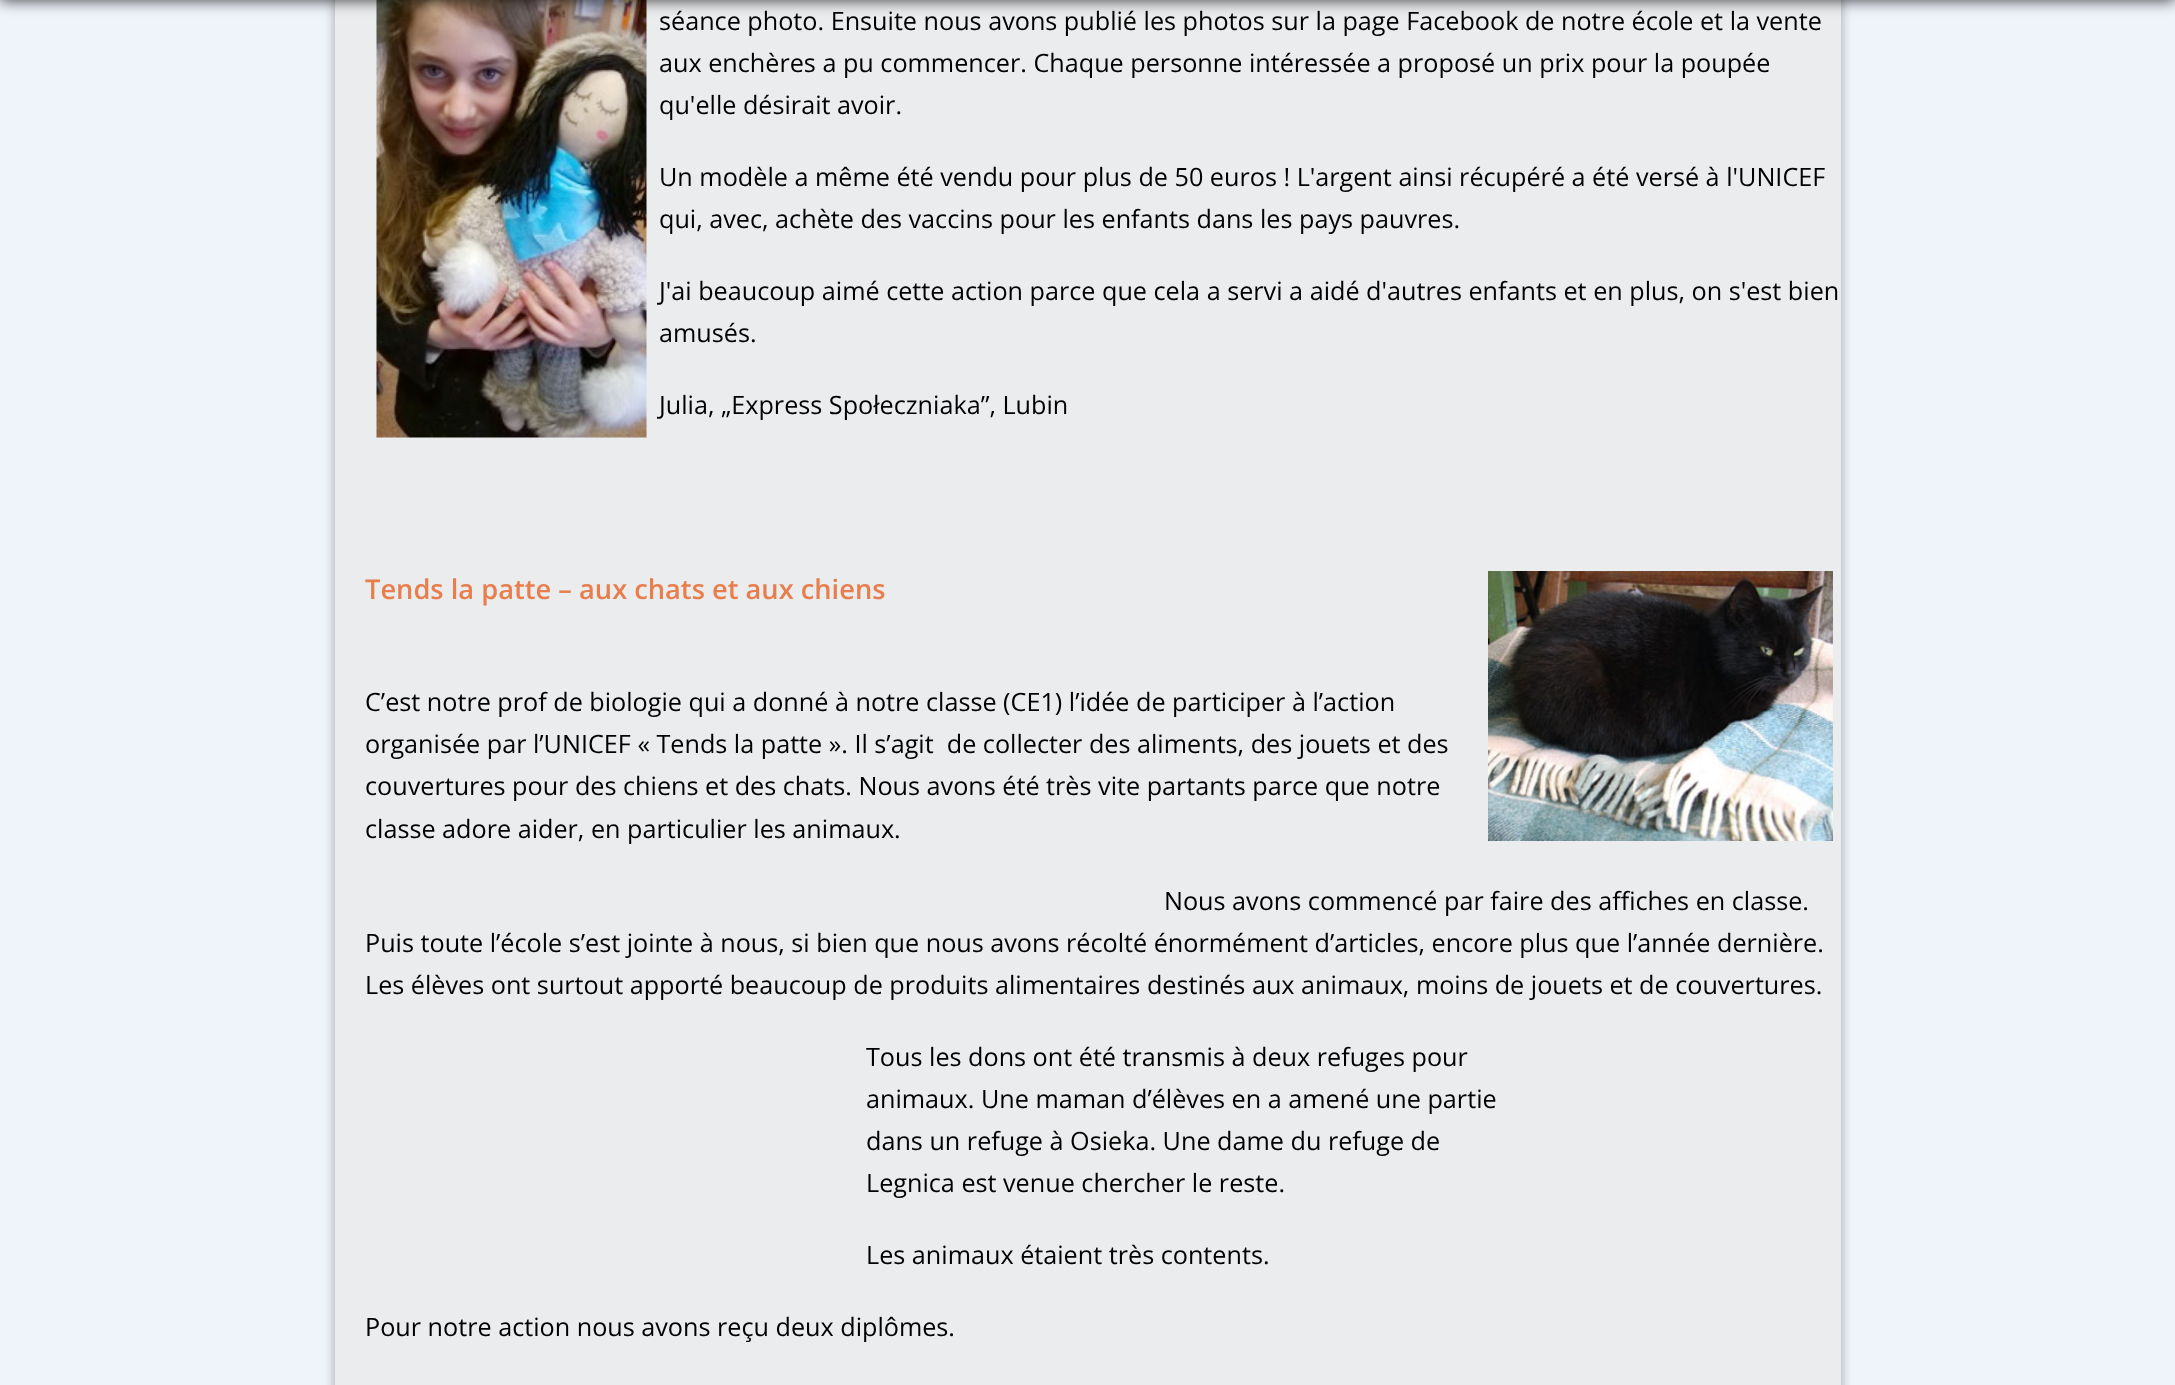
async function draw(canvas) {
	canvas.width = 2175;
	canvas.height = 1385;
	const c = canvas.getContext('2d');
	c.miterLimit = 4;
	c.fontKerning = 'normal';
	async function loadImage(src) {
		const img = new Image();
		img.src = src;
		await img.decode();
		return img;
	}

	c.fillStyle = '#eff3fa';
	c.fillRect(0, 0, 2175, 1385);
	c.fillStyle = '#00000054';
	c.filter = 'blur(6px)';
	c.beginPath();
	c.rect(335, -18, 1506, 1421);
	c.fill();
	c.filter = 'none';
	c.fillStyle = '#ebeced';
	c.fillRect(335, 0, 1506, 1385);
	c.drawImage(await loadImage('img1.png'), 376, 0, 271, 438);
	c.fillStyle = '#000000cc';
	c.filter = 'blur(7.5px)';
	c.beginPath();
	c.rect(0, -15, 2175, 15);
	c.fill();
	c.filter = 'none';
	c.font = '25.2px Open Sans';
	c.fillStyle = '#000';
	for (const [text, x, y] of [
		['séance photo. Ensuite nous avons publié les photos sur la page Facebook de notre école et la vente', 659, 30],
		['aux enchères a pu commencer. Chaque personne intéressée a proposé un prix pour la poupée', 659, 72],
		['qu\'elle désirait avoir.', 659, 114],
		['Un modèle a même été vendu pour plus de 50 euros ! L\'argent ainsi récupéré a été versé à l\'UNICEF', 659, 186],
		['qui, avec, achète des vaccins pour les enfants dans les pays pauvres.', 659, 228],
		['J\'ai beaucoup aimé cette action parce que cela a servi a aidé d\'autres enfants et en plus, on s\'est bien', 659, 300],
		['amusés.', 659, 342],
		['Julia, „Express Społeczniaka”, Lubin', 659, 414],
	]) {
		c.fillText(text, x, y);
	}
	c.font = '600 27.25px Open Sans';
	c.fillStyle = '#e77e4c';
	c.fillText('Tends la patte – aux chats et aux chiens', 365, 599);
	c.drawImage(await loadImage('img2.png'), 1488, 571, 345, 270);
	c.font = '25.2px Open Sans';
	c.fillStyle = '#000';
	for (const [text, x, y] of [
		['C’est notre prof de biologie qui a donné à notre classe (CE1) l’idée de participer à l’action', 365, 711],
		['organisée par l’UNICEF « Tends la patte ». Il s’agit  de collecter des aliments, des jouets et des', 365, 753],
		['couvertures pour des chiens et des chats. Nous avons été très vite partants parce que notre', 365, 795],
		['classe adore aider, en particulier les animaux.', 365, 838],
		['Nous avons commencé par faire des affiches en classe.', 1164, 910],
		['Puis toute l’école s’est jointe à nous, si bien que nous avons récolté énormément d’articles, encore plus que l’année dernière.', 365, 952],
		['Les élèves ont surtout apporté beaucoup de produits alimentaires destinés aux animaux, moins de jouets et de couvertures.', 365, 994],
		['Tous les dons ont été transmis à deux refuges pour', 866, 1066],
		['animaux. Une maman d’élèves en a amené une partie', 866, 1108],
		['dans un refuge à Osieka. Une dame du refuge de', 866, 1150],
		['Legnica est venue chercher le reste.', 866, 1192],
		['Les animaux étaient très contents.', 866, 1264],
		['Pour notre action nous avons reçu deux diplômes.', 365, 1336],
	]) {
		c.fillText(text, x, y);
	}
}

draw(document.querySelector('canvas'));
